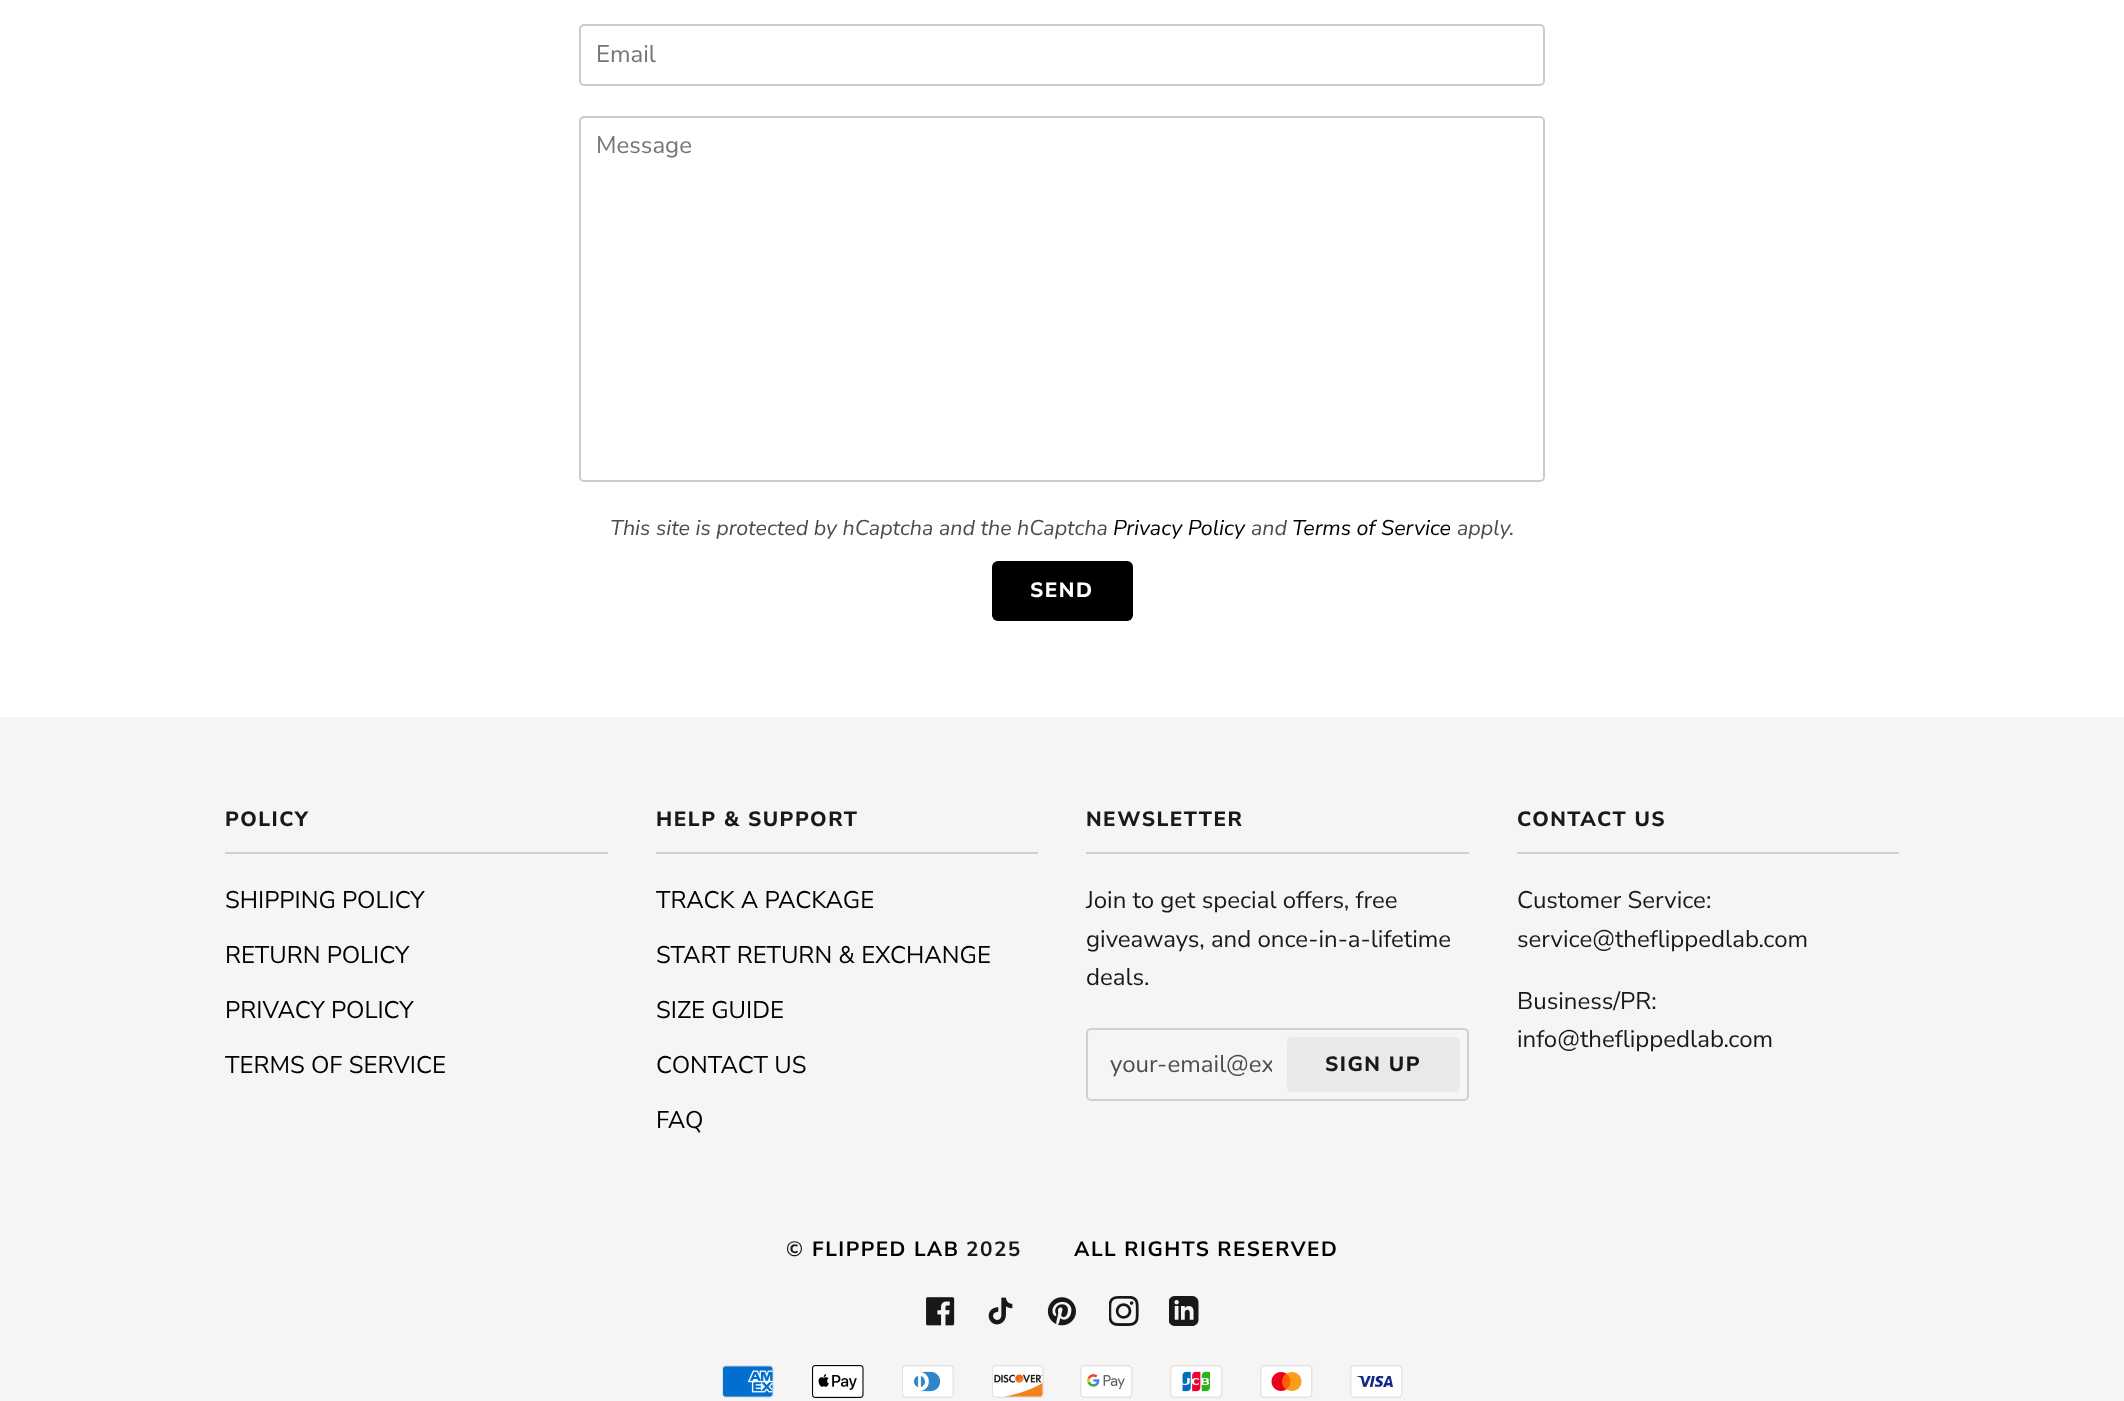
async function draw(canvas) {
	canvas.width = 2124;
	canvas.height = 1401;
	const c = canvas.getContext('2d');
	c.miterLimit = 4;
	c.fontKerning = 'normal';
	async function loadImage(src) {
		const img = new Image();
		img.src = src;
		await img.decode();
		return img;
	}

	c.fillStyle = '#fff';
	c.fillRect(0, 0, 2124, 1401);
	c.beginPath();
	c.roundRect(580, 25, 964, 60, 4);
	c.strokeStyle = '#ccc';
	c.lineWidth = 2;
	c.stroke();
	c.font = '24px Nunito Sans';
	c.fillStyle = '#757575';
	c.fillText('Email', 596, 62);
	c.beginPath();
	c.roundRect(580, 117, 964, 364, 4);
	c.stroke();
	c.fillText('Message', 596, 153);
	c.font = 'italic 21.45px Nunito Sans';
	c.fillStyle = '#4d4d4d';
	c.fillText('This site is protected by hCaptcha and the hCaptcha', 610, 535);
	c.fillStyle = '#000';
	c.fillText('Privacy Policy', 1113, 535);
	c.fillStyle = '#4d4d4d';
	c.fillText('and', 1251, 535);
	c.fillStyle = '#000';
	c.fillText('Terms of Service', 1292, 535);
	c.fillStyle = '#4d4d4d';
	c.fillText('apply.', 1457, 535);
	c.fillStyle = '#000';
	c.beginPath();
	c.roundRect(992, 561, 141, 60, 6);
	c.fill();
	c.letterSpacing = '1.5px';
	c.font = '800 20.75px Nunito Sans';
	c.fillStyle = '#fff';
	c.fillText('SEND', 1030, 597);
	c.fillStyle = '#f5f5f5';
	c.fillRect(0, 717, 2124, 684);
	c.fillStyle = '#d0d0d0';
	c.fillRect(225, 852, 383, 2);
	c.fillStyle = '#191919';
	c.fillText('POLICY', 225, 826);
	c.letterSpacing = '0px';
	c.font = '24px Nunito Sans';
	c.fillStyle = '#000';
	for (const [text, x, y] of [
		['SHIPPING POLICY', 225, 908],
		['RETURN POLICY', 225, 963],
		['PRIVACY POLICY', 225, 1018],
		['TERMS OF SERVICE', 225, 1073],
	]) {
		c.fillText(text, x, y);
	}
	c.fillStyle = '#d0d0d0';
	c.fillRect(656, 852, 382, 2);
	c.letterSpacing = '1.5px';
	c.font = '800 20.75px Nunito Sans';
	c.fillStyle = '#191919';
	c.fillText('HELP & SUPPORT', 656, 826);
	c.letterSpacing = '0px';
	c.font = '24px Nunito Sans';
	c.fillStyle = '#000';
	for (const [text, x, y] of [
		['TRACK A PACKAGE', 656, 908],
		['START RETURN & EXCHANGE', 656, 963],
		['SIZE GUIDE', 656, 1018],
		['CONTACT US', 656, 1073],
		['FAQ', 656, 1128],
	]) {
		c.fillText(text, x, y);
	}
	c.fillStyle = '#d0d0d0';
	c.fillRect(1086, 852, 383, 2);
	c.letterSpacing = '1.5px';
	c.font = '800 20.75px Nunito Sans';
	c.fillStyle = '#191919';
	c.fillText('NEWSLETTER', 1086, 826);
	c.letterSpacing = '0px';
	c.font = '24px Nunito Sans';
	for (const [text, x, y] of [
		['Join to get special offers, free', 1086, 908],
		['giveaways, and once-in-a-lifetime', 1086, 947],
		['deals.', 1086, 985],
	]) {
		c.fillText(text, x, y);
	}
	c.beginPath();
	c.roundRect(1087, 1029, 381, 71, 4);
	c.strokeStyle = '#d0d0d0';
	c.stroke();
	c.save();
	c.beginPath();
	c.rect(1110, 1049, 162, 33);
	c.clip();
	c.fillStyle = '#4d4d4d';
	c.fillText('your-email@ex', 1110, 1072);
	c.restore();
	c.fillStyle = '#e9e9e9';
	c.beginPath();
	c.roundRect(1287, 1037, 173, 55, 5);
	c.fill();
	c.letterSpacing = '1.5px';
	c.font = '800 20.75px Nunito Sans';
	c.fillStyle = '#191919';
	c.fillText('SIGN UP', 1325, 1071);
	c.fillStyle = '#d0d0d0';
	c.fillRect(1517, 852, 382, 2);
	c.fillStyle = '#191919';
	c.fillText('CONTACT US', 1517, 826);
	c.letterSpacing = '0px';
	c.font = '24px Nunito Sans';
	for (const [text, x, y] of [
		['Customer Service:', 1517, 908],
		['service@theflippedlab.com', 1517, 947],
		['Business/PR:', 1517, 1009],
		['info@theflippedlab.com', 1517, 1047],
	]) {
		c.fillText(text, x, y);
	}
	c.letterSpacing = '1.5px';
	c.font = 'bold 20.75px Nunito Sans';
	c.fillText('©', 786, 1256);
	c.fillStyle = '#000';
	c.fillText('FLIPPED LAB', 812, 1256);
	c.fillStyle = '#191919';
	c.fillText('2025', 966, 1256);
	c.fillStyle = '#000';
	c.fillText('ALL RIGHTS RESERVED', 1074, 1256);
	c.drawImage(await loadImage('img1.png'), 926, 1297, 29, 29);
	c.drawImage(await loadImage('img2.png'), 988, 1297, 25, 28);
	c.drawImage(await loadImage('img3.png'), 1047, 1297, 29, 29);
	c.drawImage(await loadImage('img4.png'), 1109, 1296, 30, 30);
	c.drawImage(await loadImage('img5.png'), 1169, 1296, 30, 30);
	c.drawImage(await loadImage('img6.png'), 722, 1365, 52, 33);
	c.drawImage(await loadImage('img7.png'), 812, 1365, 52, 33);
	c.drawImage(await loadImage('img8.png'), 902, 1365, 52, 33);
	c.drawImage(await loadImage('img9.png'), 992, 1365, 52, 33);
	c.drawImage(await loadImage('img10.png'), 1080, 1365, 53, 33);
	c.drawImage(await loadImage('img11.png'), 1170, 1365, 53, 33);
	c.drawImage(await loadImage('img12.png'), 1260, 1365, 53, 33);
	c.drawImage(await loadImage('img13.png'), 1350, 1365, 53, 33);
}

draw(document.querySelector('canvas'));
